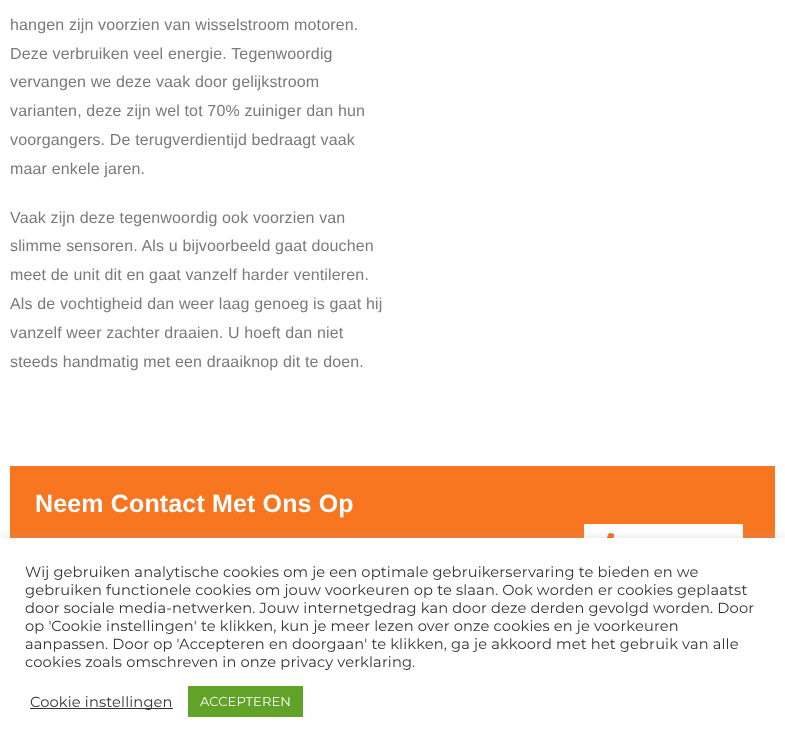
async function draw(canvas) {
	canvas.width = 785;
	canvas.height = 747;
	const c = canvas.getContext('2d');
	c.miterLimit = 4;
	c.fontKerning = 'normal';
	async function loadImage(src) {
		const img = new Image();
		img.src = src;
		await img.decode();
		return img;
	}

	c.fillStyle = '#fff';
	c.fillRect(0, 0, 785, 747);
	c.letterSpacing = '0.15px';
	c.font = '16px Liberation Sans';
	c.fillStyle = '#7a7a7a';
	for (const [text, x, y] of [
		['hangen zijn voorzien van wisselstroom motoren.', 10, 30],
		['Deze verbruiken veel energie. Tegenwoordig', 10, 59],
		['vervangen we deze vaak door gelijkstroom', 10, 87],
		['varianten, deze zijn wel tot 70% zuiniger dan hun', 10, 116],
		['voorgangers. De terugverdientijd bedraagt vaak', 10, 145],
		['maar enkele jaren.', 10, 174],
		['Vaak zijn deze tegenwoordig ook voorzien van', 10, 223],
		['slimme sensoren. Als u bijvoorbeeld gaat douchen', 10, 251],
		['meet de unit dit en gaat vanzelf harder ventileren.', 10, 280],
		['Als de vochtigheid dan weer laag genoeg is gaat hij', 10, 309],
		['vanzelf weer zachter draaien. U hoeft dan niet', 10, 338],
		['steeds handmatig met een draaiknop dit te doen.', 10, 367],
	]) {
		c.fillText(text, x, y);
	}
	c.fillStyle = '#f87620';
	c.fillRect(10, 466, 765, 72);
	c.font = 'bold 25px Liberation Sans';
	c.fillStyle = '#fff';
	c.fillText('Neem Contact Met Ons Op', 35, 512);
	c.fillRect(584, 524, 159, 14);
	c.drawImage(await loadImage('img1.png'), 607, 533, 7, 5);
	c.fillStyle = '#acabab4d';
	c.filter = 'blur(5px)';
	c.beginPath();
	c.rect(0, 537, 785, 209);
	c.fill();
	c.filter = 'none';
	c.fillStyle = '#fff';
	c.fillRect(0, 538, 785, 209);
	c.font = '14.65px Montserrat';
	c.fillStyle = '#333';
	for (const [text, x, y] of [
		['Wij gebruiken analytische cookies om je een optimale gebruikerservaring te bieden en we', 25, 577],
		['gebruiken functionele cookies om jouw voorkeuren op te slaan. Ook worden er cookies geplaatst', 25, 595],
		['door sociale media-netwerken. Jouw internetgedrag kan door deze derden gevolgd worden. Door', 25, 613],
		['op \'Cookie instellingen\' te klikken, kun je meer lezen over onze cookies en je voorkeuren', 25, 631],
		['aanpassen. Door op \'Accepteren en doorgaan\' te klikken, ga je akkoord met het gebruik van alle', 25, 649],
		['cookies zoals omschreven in onze privacy verklaring.', 25, 667],
	]) {
		c.fillText(text, x, y);
	}
	c.fillRect(30, 708, 143, 1);
	c.fillText('Cookie instellingen', 30, 707);
	c.fillStyle = '#61a229';
	c.fillRect(188, 686, 115, 31);
	c.font = '13px Montserrat';
	c.fillStyle = '#fff';
	c.fillText('ACCEPTEREN', 200, 706);
}

draw(document.querySelector('canvas'));
